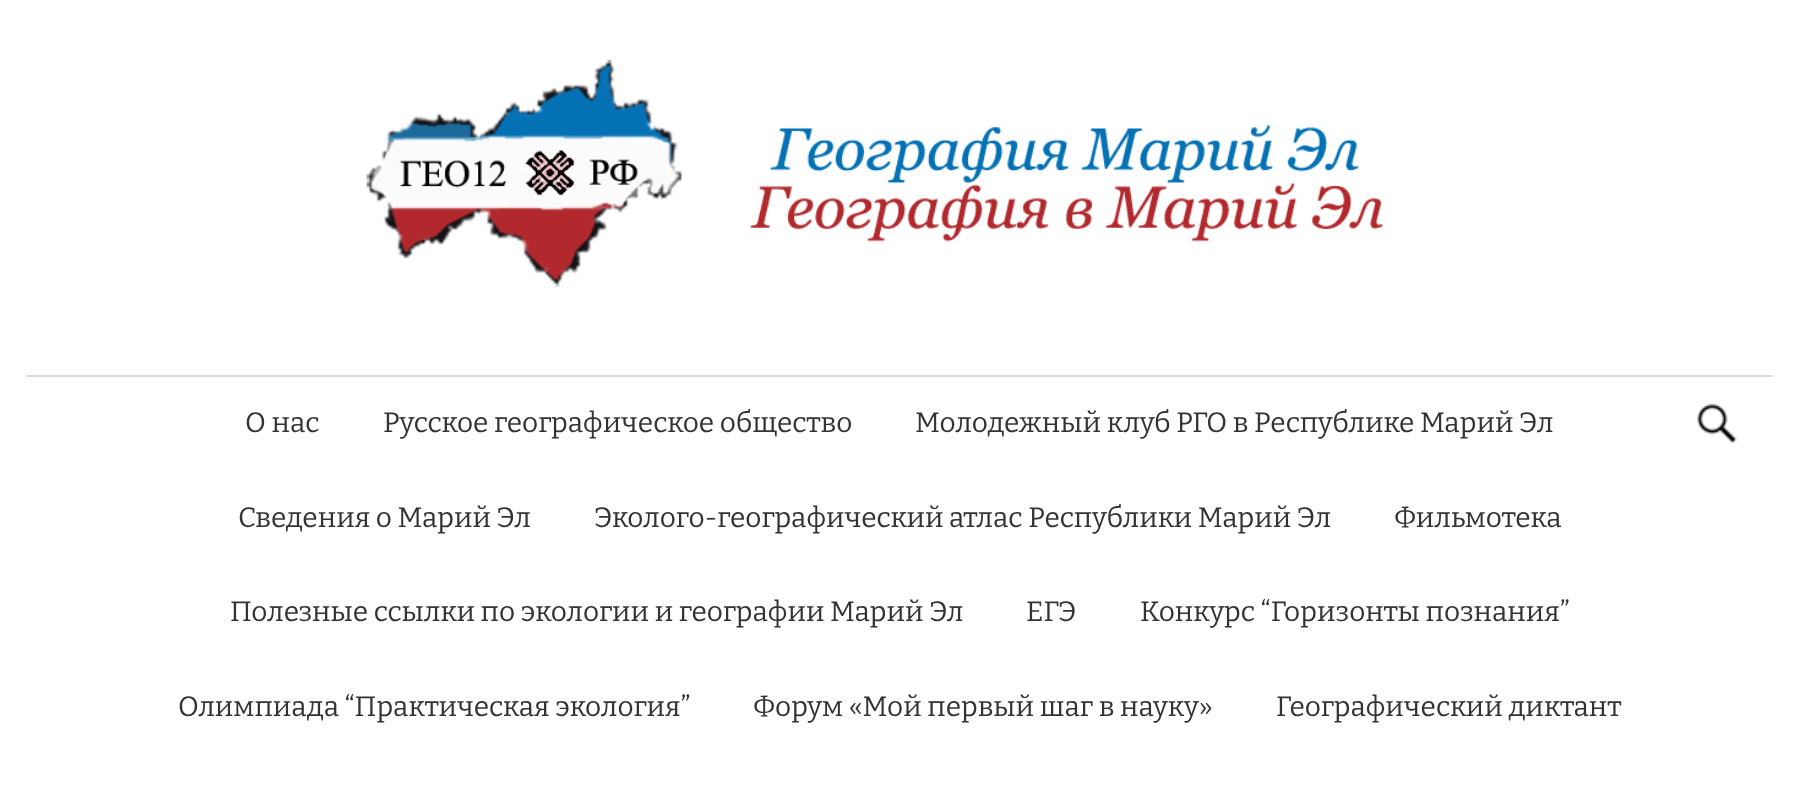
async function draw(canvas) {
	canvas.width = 1799;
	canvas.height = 804;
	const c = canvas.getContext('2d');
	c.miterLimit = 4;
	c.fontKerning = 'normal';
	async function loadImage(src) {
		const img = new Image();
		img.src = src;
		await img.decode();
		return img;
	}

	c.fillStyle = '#fff';
	c.fillRect(0, 0, 1799, 804);
	c.drawImage(await loadImage('img1.png'), 366, 59, 1018, 228);
	c.fillStyle = '#ddd';
	c.fillRect(26, 375, 1747, 2);
	c.font = '100 28px Bitter';
	c.fillStyle = '#333';
	for (const [text, x, y] of [
		['О нас', 245, 432],
		['Русское географическое общество', 383, 432],
		['Молодежный клуб РГО в Республике Марий Эл', 915, 432],
		['Сведения о Марий Эл', 238, 527],
		['Эколого-географический атлас Республики Марий Эл', 594, 527],
		['Фильмотека', 1394, 527],
		['Полезные ссылки по экологии и географии Марий Эл', 230, 621],
		['ЕГЭ', 1026, 621],
		['Конкурс “Горизонты познания”', 1140, 621],
		['Олимпиада “Практическая экология”', 178, 716],
		['Форум «Мой первый шаг в науку»', 753, 716],
		['Географический диктант', 1276, 716],
	]) {
		c.fillText(text, x, y);
	}
	c.drawImage(await loadImage('img2.png'), 1697, 403, 40, 41);
}

draw(document.querySelector('canvas'));
